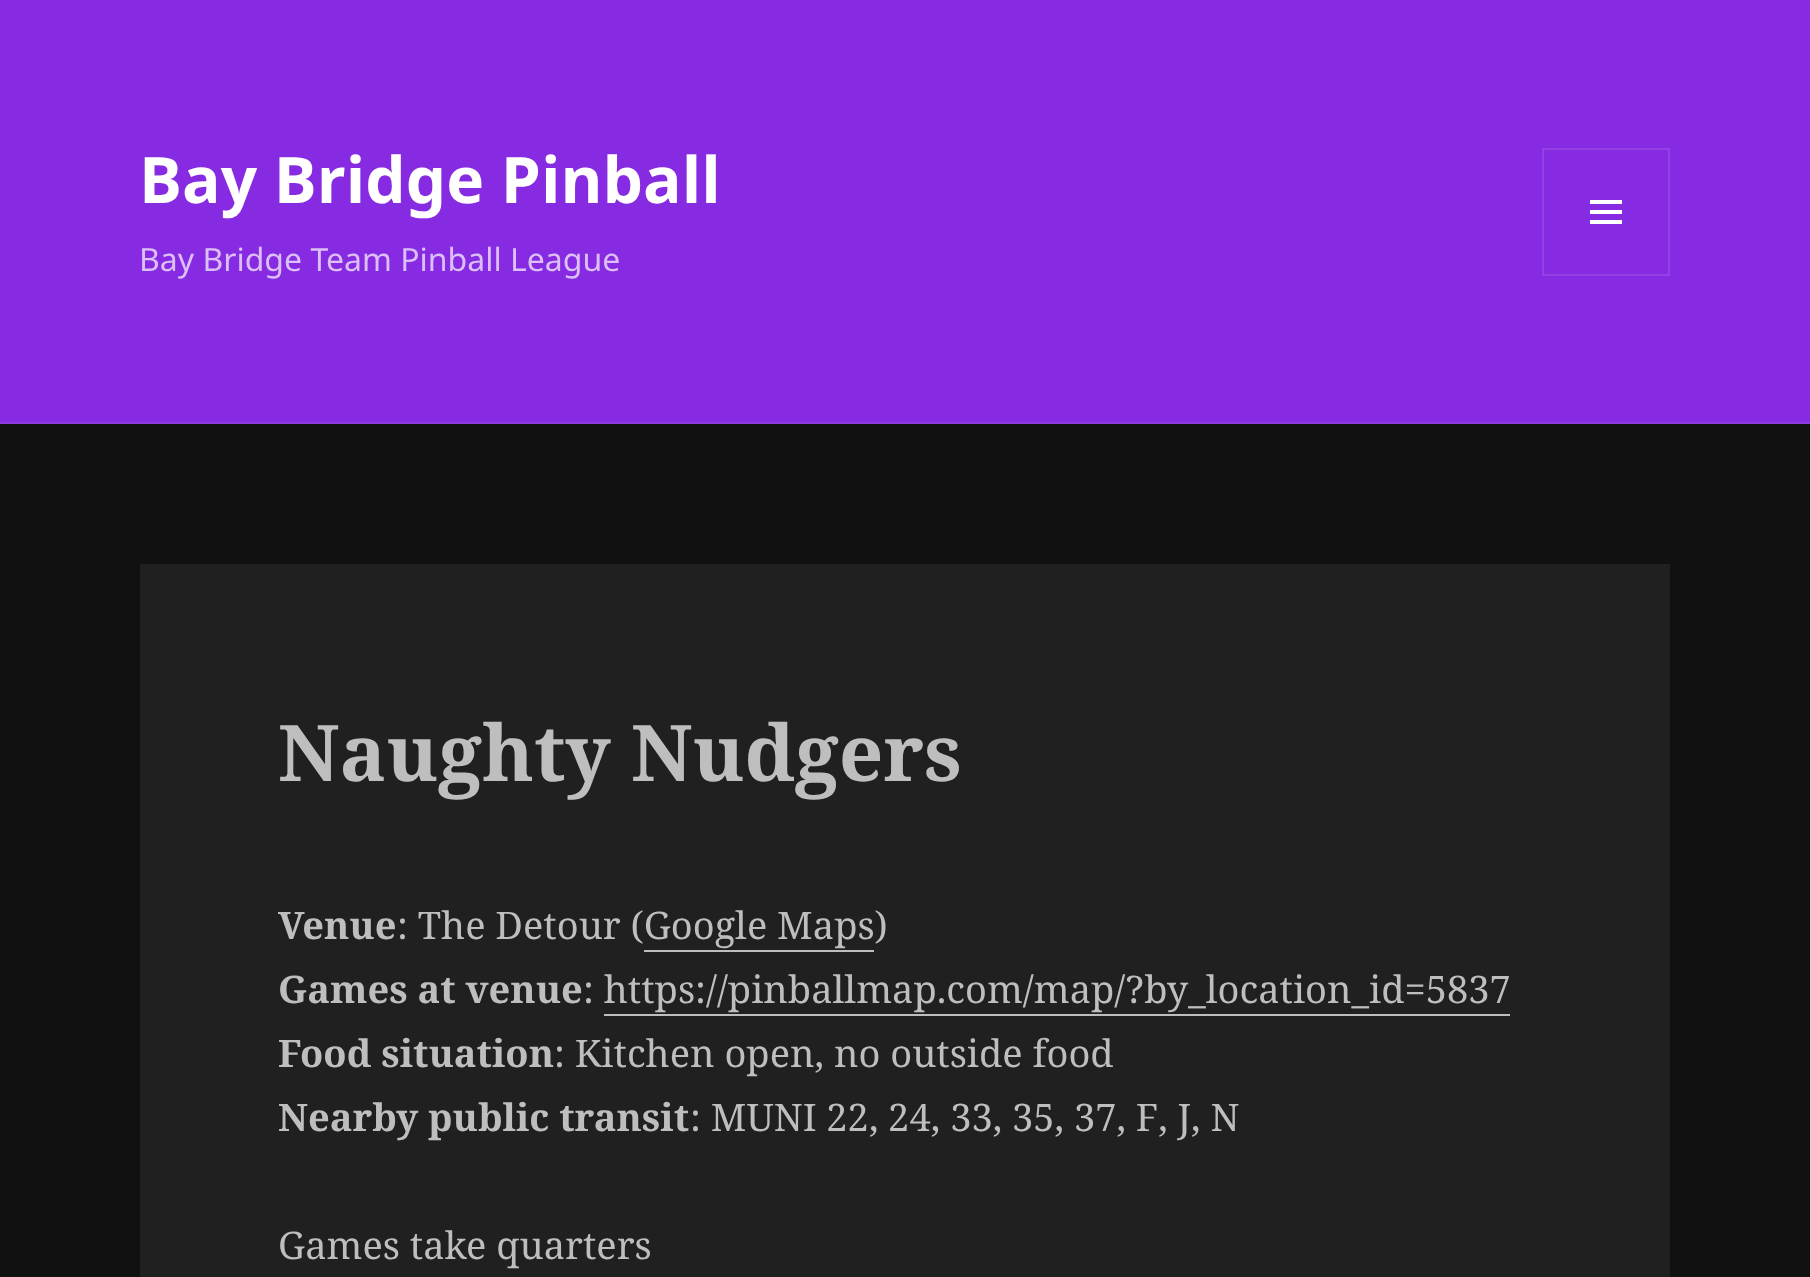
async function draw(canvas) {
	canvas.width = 1810;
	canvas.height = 1277;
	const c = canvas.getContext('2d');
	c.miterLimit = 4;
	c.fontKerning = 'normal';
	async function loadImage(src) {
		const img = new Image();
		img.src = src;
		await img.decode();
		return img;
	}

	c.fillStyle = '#111';
	c.fillRect(0, 0, 1810, 1277);
	c.fillStyle = '#872be2';
	c.fillRect(0, 0, 1810, 422);
	c.fillStyle = '#8d3ade';
	c.fillRect(0, 422, 1810, 2);
	c.font = 'bold 64px Noto Sans';
	c.fillStyle = '#fff';
	c.fillText('Bay Bridge Pinball', 139, 203);
	c.strokeStyle = '#9340e5';
	c.lineWidth = 2;
	c.strokeRect(1543, 149, 126, 126);
	c.drawImage(await loadImage('img1.png'), 1590, 200, 32, 24);
	c.font = '32px Noto Sans';
	c.fillStyle = '#dbbff6';
	c.fillText('Bay Bridge Team Pinball League', 139, 271);
	c.fillStyle = '#202020';
	c.fillRect(140, 564, 1530, 713);
	c.font = 'bold 78px Noto Serif';
	c.fillStyle = '#bebebe';
	c.fillText('Naughty Nudgers', 278, 781);
	c.font = 'bold 38px Noto Serif';
	c.fillText('Venue', 278, 939);
	c.font = '38px Noto Serif';
	c.fillText(': The Detour (Google Maps)', 397, 939);
	c.fillRect(644, 950, 230, 2);
	c.font = 'bold 38px Noto Serif';
	c.fillText('Games at venue', 278, 1003);
	c.font = '38px Noto Serif';
	c.fillText(': https://pinballmap.com/map/?by_location_id=5837', 583, 1003);
	c.fillRect(604, 1014, 906, 2);
	c.font = 'bold 38px Noto Serif';
	c.fillText('Food situation', 278, 1067);
	c.font = '38px Noto Serif';
	c.fillText(': Kitchen open, no outside food', 554, 1067);
	c.font = 'bold 38px Noto Serif';
	c.fillText('Nearby public transit', 278, 1131);
	c.font = '38px Noto Serif';
	c.fillText(': MUNI 22, 24, 33, 35, 37, F, J, N', 690, 1131);
	c.fillText('Games take quarters', 278, 1259);
}

draw(document.querySelector('canvas'));
